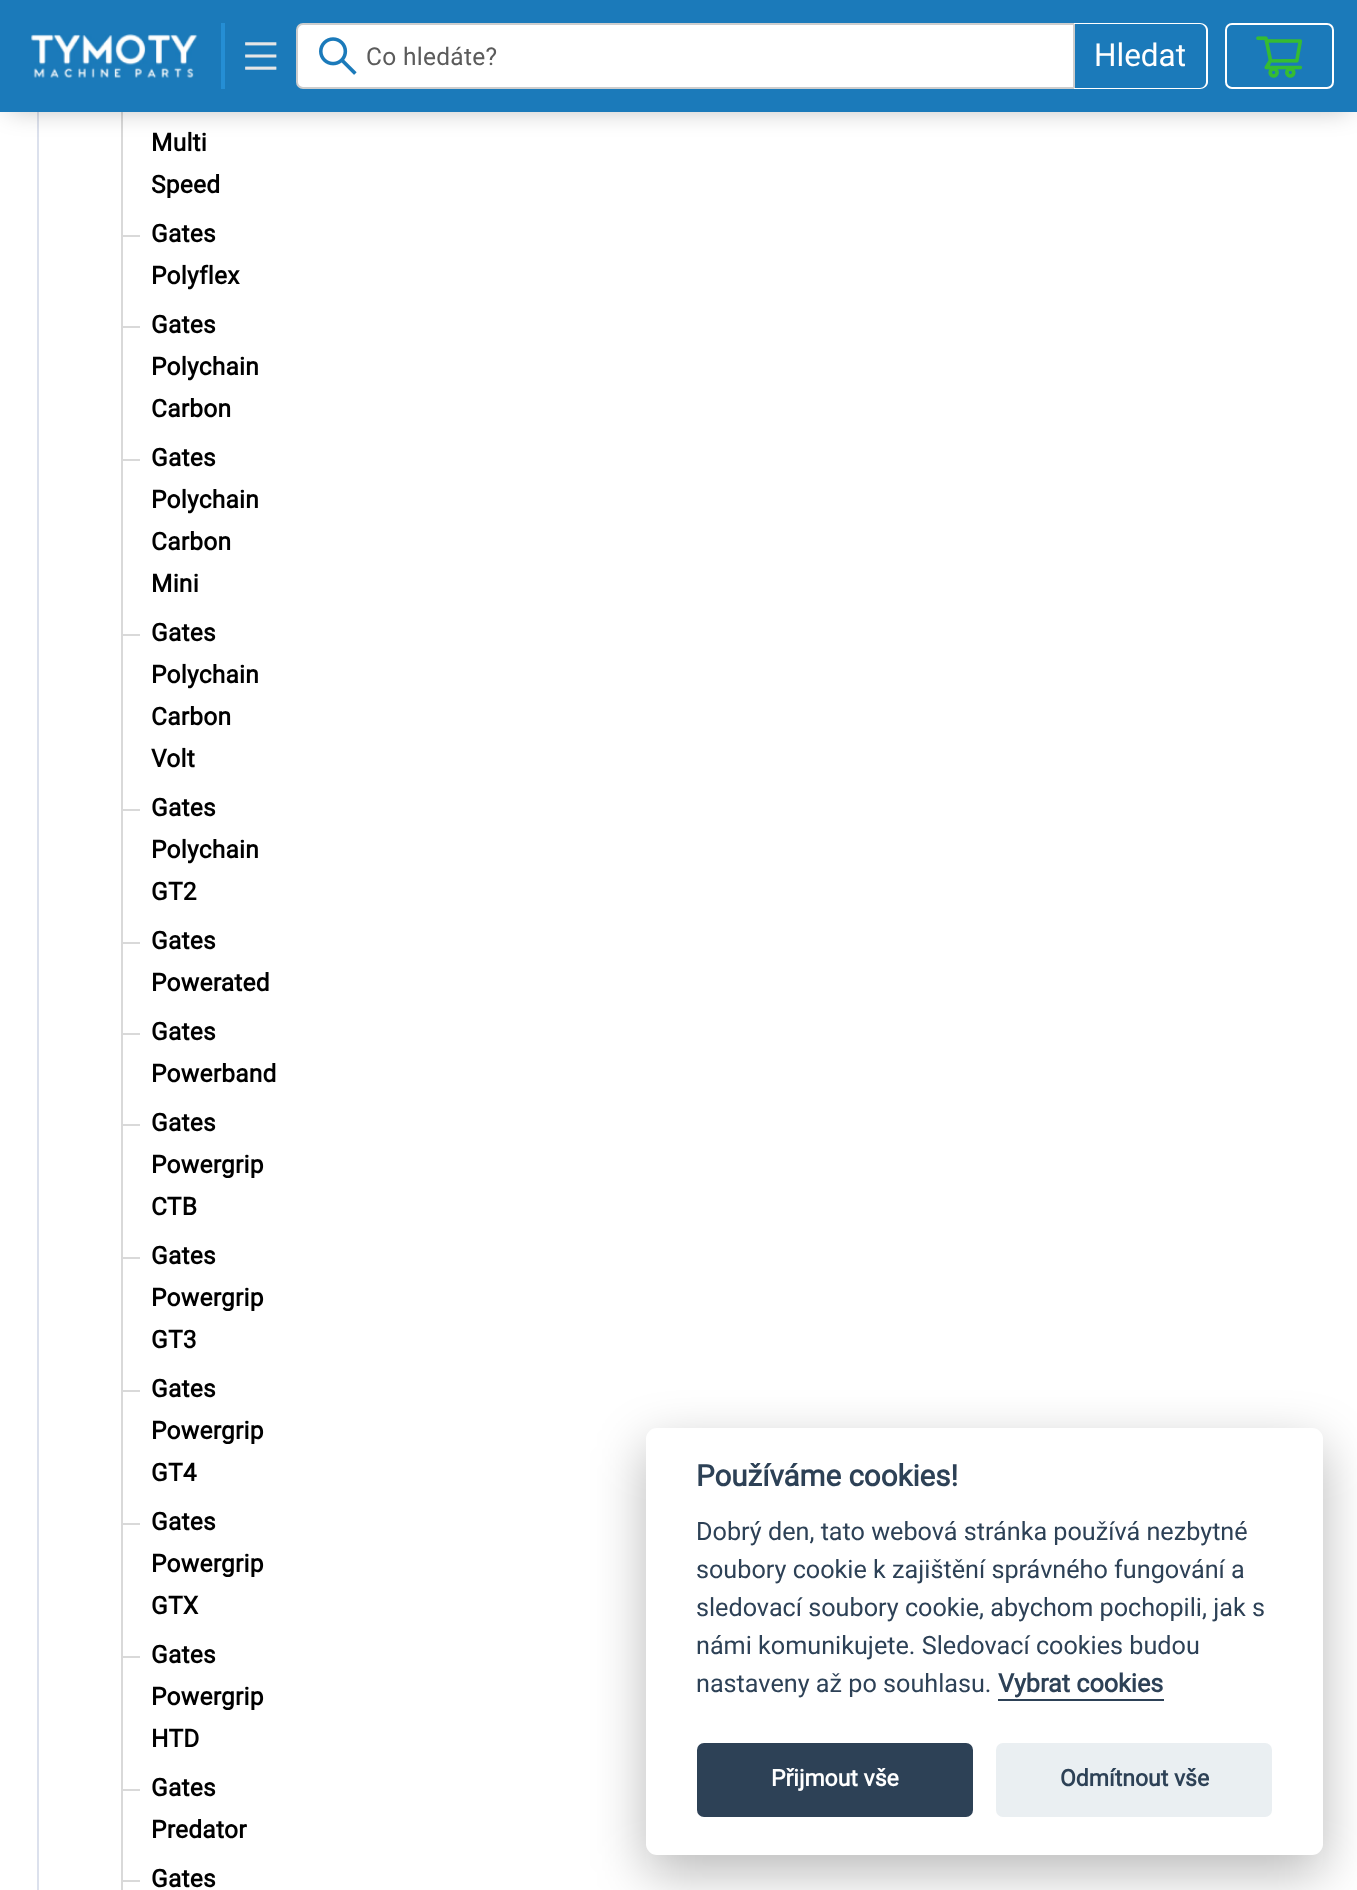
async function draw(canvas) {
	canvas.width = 1357;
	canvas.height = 1890;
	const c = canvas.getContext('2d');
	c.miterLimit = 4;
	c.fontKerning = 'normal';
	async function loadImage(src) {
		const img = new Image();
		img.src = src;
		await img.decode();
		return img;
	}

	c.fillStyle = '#fff';
	c.fillRect(0, 0, 1357, 1890);
	c.fillStyle = '#dce1ed';
	c.fillRect(37, 112, 2, 1778);
	c.fillStyle = '#d9d9d9';
	c.fillRect(121, 112, 2, 1778);
	c.fillStyle = '#00000047';
	c.filter = 'blur(13px)';
	c.beginPath();
	c.rect(9, 14, 1340, 95);
	c.fill();
	c.filter = 'none';
	c.fillStyle = '#1b7aba';
	c.fillRect(0, 0, 1357, 112);
	c.fillStyle = '#258ed4';
	c.fillRect(221, 23, 4, 66);
	c.drawImage(await loadImage('img1.png'), 31, 34, 167, 44);
	c.drawImage(await loadImage('img2.png'), 245, 42, 32, 28);
	c.fillStyle = '#fff';
	c.beginPath();
	c.roundRect(297, 24, 777, 64, [6, 0, 0, 6]);
	c.fill();
	c.strokeStyle = '#cdcdcd';
	c.lineWidth = 2;
	c.stroke();
	c.drawImage(await loadImage('img3.png'), 319, 37, 38, 38);
	c.letterSpacing = '0.3px';
	c.font = '24.5px Roboto';
	c.fillStyle = '#5b5b5b';
	c.fillText('Co hledáte?', 366, 65);
	c.fillStyle = '#fff';
	c.beginPath();
	c.moveTo(1074, 23);
	c.lineTo(1200, 23);
	c.bezierCurveTo(1204, 23, 1208, 26, 1208, 30);
	c.lineTo(1208, 82);
	c.bezierCurveTo(1208, 86, 1204, 89, 1200, 89);
	c.lineTo(1074, 89);
	c.closePath();
	c.moveTo(1074, 24);
	c.lineTo(1200, 24);
	c.bezierCurveTo(1203, 24, 1206, 27, 1206, 30);
	c.lineTo(1206, 82);
	c.bezierCurveTo(1206, 85, 1203, 88, 1200, 88);
	c.lineTo(1074, 88);
	c.closePath();
	c.fill('evenodd');
	c.letterSpacing = '0px';
	c.font = '31.5px Roboto';
	c.fillText('Hledat', 1094, 66);
	c.beginPath();
	c.roundRect(1226, 24, 107, 64, 6);
	c.strokeStyle = '#fff';
	c.stroke();
	c.drawImage(await loadImage('img4.png'), 1256, 36, 47, 42);
	c.letterSpacing = '0.25px';
	c.font = 'bold 24.5px Roboto';
	c.fillStyle = '#000';
	c.fillText('Multi', 151, 151);
	c.fillText('Speed', 151, 193);
	c.fillStyle = '#d9d9d9';
	c.fillRect(123, 235, 17, 2);
	c.fillStyle = '#000';
	c.fillText('Gates', 151, 242);
	c.fillText('Polyflex', 151, 284);
	c.fillStyle = '#d9d9d9';
	c.fillRect(123, 326, 17, 2);
	c.fillStyle = '#000';
	for (const [text, x, y] of [
		['Gates', 151, 333],
		['Polychain', 151, 375],
		['Carbon', 151, 417],
	]) {
		c.fillText(text, x, y);
	}
	c.fillStyle = '#d9d9d9';
	c.fillRect(123, 459, 17, 2);
	c.fillStyle = '#000';
	for (const [text, x, y] of [
		['Gates', 151, 466],
		['Polychain', 151, 508],
		['Carbon', 151, 550],
		['Mini', 151, 592],
	]) {
		c.fillText(text, x, y);
	}
	c.fillStyle = '#d9d9d9';
	c.fillRect(123, 634, 17, 2);
	c.fillStyle = '#000';
	for (const [text, x, y] of [
		['Gates', 151, 641],
		['Polychain', 151, 683],
		['Carbon', 151, 725],
		['Volt', 151, 767],
	]) {
		c.fillText(text, x, y);
	}
	c.fillStyle = '#d9d9d9';
	c.fillRect(123, 809, 17, 2);
	c.fillStyle = '#000';
	for (const [text, x, y] of [
		['Gates', 151, 816],
		['Polychain', 151, 858],
		['GT2', 151, 900],
	]) {
		c.fillText(text, x, y);
	}
	c.fillStyle = '#d9d9d9';
	c.fillRect(123, 942, 17, 2);
	c.fillStyle = '#000';
	c.fillText('Gates', 151, 949);
	c.fillText('Powerated', 151, 991);
	c.fillStyle = '#d9d9d9';
	c.fillRect(123, 1033, 17, 2);
	c.fillStyle = '#000';
	c.fillText('Gates', 151, 1040);
	c.fillText('Powerband', 151, 1082);
	c.fillStyle = '#d9d9d9';
	c.fillRect(123, 1124, 17, 2);
	c.fillStyle = '#000';
	for (const [text, x, y] of [
		['Gates', 151, 1131],
		['Powergrip', 151, 1173],
		['CTB', 151, 1215],
	]) {
		c.fillText(text, x, y);
	}
	c.fillStyle = '#d9d9d9';
	c.fillRect(123, 1257, 17, 2);
	c.fillStyle = '#000';
	for (const [text, x, y] of [
		['Gates', 151, 1264],
		['Powergrip', 151, 1306],
		['GT3', 151, 1348],
	]) {
		c.fillText(text, x, y);
	}
	c.fillStyle = '#d9d9d9';
	c.fillRect(123, 1390, 17, 2);
	c.fillStyle = '#000';
	for (const [text, x, y] of [
		['Gates', 151, 1397],
		['Powergrip', 151, 1439],
		['GT4', 151, 1481],
	]) {
		c.fillText(text, x, y);
	}
	c.fillStyle = '#d9d9d9';
	c.fillRect(123, 1523, 17, 2);
	c.fillStyle = '#000';
	for (const [text, x, y] of [
		['Gates', 151, 1530],
		['Powergrip', 151, 1572],
		['GTX', 151, 1614],
	]) {
		c.fillText(text, x, y);
	}
	c.fillStyle = '#d9d9d9';
	c.fillRect(123, 1656, 17, 2);
	c.fillStyle = '#000';
	for (const [text, x, y] of [
		['Gates', 151, 1663],
		['Powergrip', 151, 1705],
		['HTD', 151, 1747],
	]) {
		c.fillText(text, x, y);
	}
	c.fillStyle = '#d9d9d9';
	c.fillRect(123, 1789, 17, 2);
	c.fillStyle = '#000';
	c.fillText('Gates', 151, 1796);
	c.fillText('Predator', 151, 1838);
	c.fillStyle = '#d9d9d9';
	c.fillRect(123, 1880, 17, 2);
	c.fillStyle = '#000';
	c.fillText('Gates', 151, 1887);
	c.fillStyle = '#02020347';
	c.filter = 'blur(26px)';
	c.beginPath();
	c.roundRect(646, 1446, 677, 427, 11);
	c.fill();
	c.filter = 'none';
	c.fillStyle = '#fff';
	c.beginPath();
	c.roundRect(646, 1428, 677, 427, 11);
	c.fill();
	c.letterSpacing = '0px';
	c.font = 'bold 29.5px Roboto';
	c.fillStyle = '#2d4156';
	c.fillText('Používáme cookies!', 696, 1486);
	c.font = '25.2px Roboto';
	for (const [text, x, y] of [
		['Dobrý den, tato webová stránka používá nezbytné', 696, 1540],
		['soubory cookie k zajištění správného fungování a', 696, 1578],
		['sledovací soubory cookie, abychom pochopili, jak s', 696, 1616],
		['námi komunikujete. Sledovací cookies budou', 696, 1654],
		['nastaveny až po souhlasu.', 696, 1692],
	]) {
		c.fillText(text, x, y);
	}
	c.font = 'bold 25.2px Roboto';
	c.fillText('Vybrat cookies', 998, 1692);
	c.fillRect(998, 1699, 166, 2);
	c.beginPath();
	c.roundRect(697, 1743, 276, 74, 7);
	c.fill();
	c.font = 'bold 23px Roboto';
	c.fillStyle = '#fff';
	c.fillText('Přijmout vše', 771, 1786);
	c.fillStyle = '#eaeff2';
	c.beginPath();
	c.roundRect(996, 1743, 276, 74, 7);
	c.fill();
	c.fillStyle = '#2d4156';
	c.fillText('Odmítnout vše', 1060, 1786);
}

draw(document.querySelector('canvas'));
